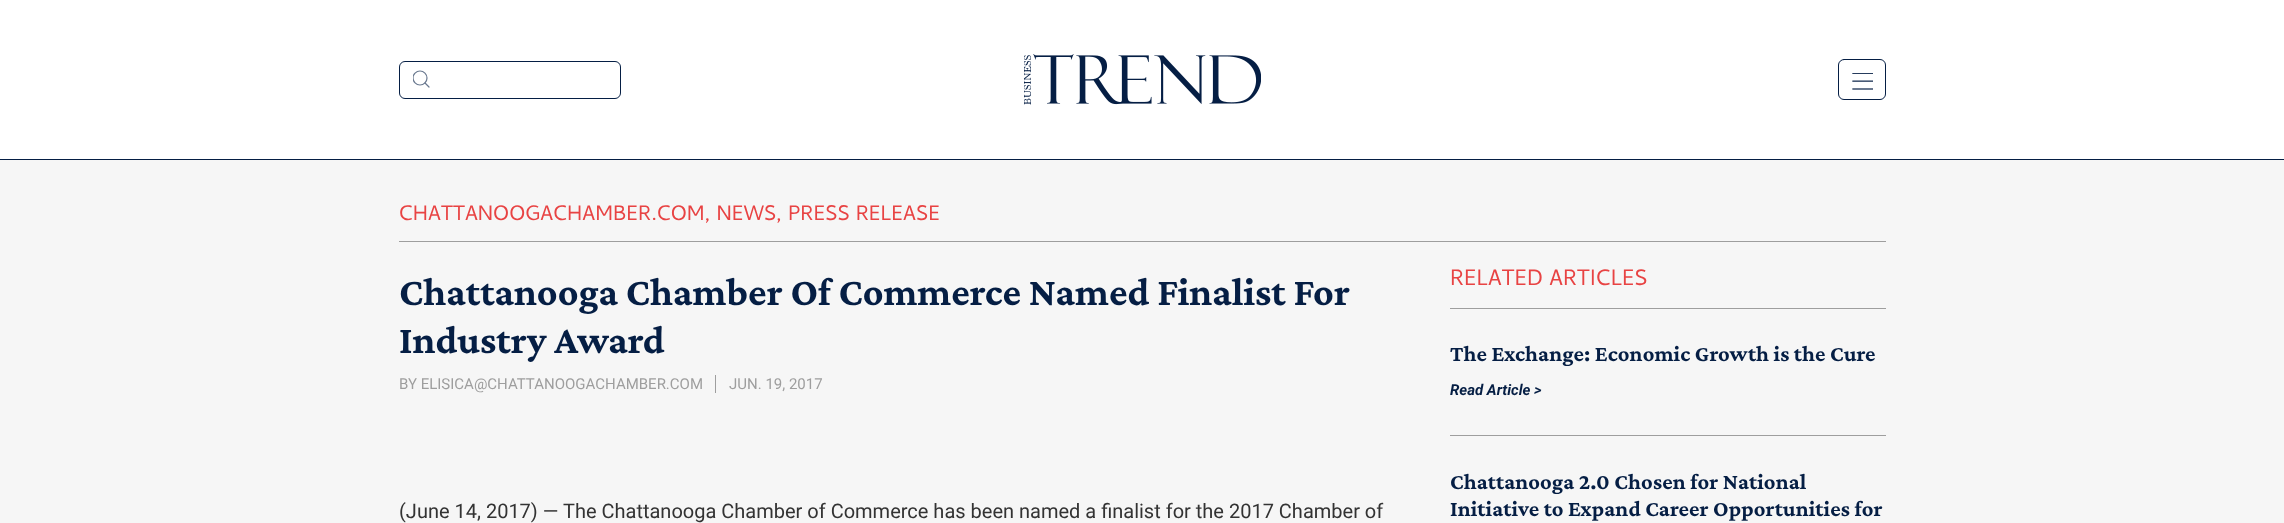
async function draw(canvas) {
	canvas.width = 2284;
	canvas.height = 523;
	const c = canvas.getContext('2d');
	c.miterLimit = 4;
	c.fontKerning = 'normal';
	async function loadImage(src) {
		const img = new Image();
		img.src = src;
		await img.decode();
		return img;
	}

	c.fillStyle = '#f6f6f6';
	c.fillRect(0, 0, 2284, 523);
	c.fillStyle = '#fff';
	c.fillRect(0, 0, 2284, 159);
	c.fillStyle = '#051e44';
	c.fillRect(0, 159, 2284, 1);
	c.beginPath();
	c.roundRect(399.5, 61.5, 221, 37, 5.5);
	c.strokeStyle = '#051e44';
	c.stroke();
	c.save();
	c.beginPath();
	c.rect(413, 70, 17, 18);
	c.clip();
	c.beginPath();
	c.arc(420, 78, 7, 0, 2 * Math.PI);
	c.strokeStyle = '#69788f';
	c.lineWidth = 1.2;
	c.stroke();
	c.restore();
	c.beginPath();
	c.moveTo(425, 83);
	c.lineTo(429, 87);
	c.strokeStyle = '#69788f';
	c.lineWidth = 1.2;
	c.lineCap = 'round';
	c.stroke();
	c.drawImage(await loadImage('img1.png'), 1024, 54, 237, 51);
	c.beginPath();
	c.roundRect(1838.5, 59.5, 47, 40, 5.5);
	c.strokeStyle = '#051e44';
	c.lineWidth = 1;
	c.stroke();
	c.drawImage(await loadImage('img2.png'), 1852, 73, 21, 17);
	c.fillStyle = '#9e9e9e';
	c.fillRect(399, 241, 1487, 1);
	c.font = '21.25px Cambay';
	c.fillStyle = '#e84343';
	c.fillText('CHATTANOOGACHAMBER.COM, NEWS, PRESS RELEASE', 399, 220);
	c.font = 'bold 40px Crimson Pro';
	c.fillStyle = '#051e44';
	c.fillText('Chattanooga Chamber Of Commerce Named Finalist For', 399, 305);
	c.fillText('Industry Award', 399, 353);
	c.font = '15px Roboto';
	c.fillStyle = '#9e9e9e';
	c.fillText('BY ELISICA@CHATTANOOGACHAMBER.COM', 399, 389);
	c.fillRect(715, 375, 1, 18);
	c.fillText('JUN. 19, 2017', 729, 389);
	c.font = '20px Roboto';
	c.fillStyle = '#333';
	c.fillText('(June 14, 2017) — The Chattanooga Chamber of Commerce has been named a finalist for the 2017 Chamber of', 399, 518);
	c.letterSpacing = '0.1px';
	c.font = '22.5px Cambay';
	c.fillStyle = '#e84343';
	c.fillText('RELATED ARTICLES', 1450, 285);
	c.fillStyle = '#9e9e9e';
	c.fillRect(1450, 308, 436, 1);
	c.font = 'bold 22.5px Crimson Pro';
	c.fillStyle = '#051e44';
	c.fillText('The Exchange: Economic Growth is the Cure', 1450, 361);
	c.letterSpacing = '0px';
	c.font = 'italic bold 15px Roboto';
	c.fillText('Read Article >', 1450, 395);
	c.fillStyle = '#9e9e9e';
	c.fillRect(1450, 435, 436, 1);
	c.letterSpacing = '0.1px';
	c.font = 'bold 22.5px Crimson Pro';
	c.fillStyle = '#051e44';
	c.fillText('Chattanooga 2.0 Chosen for National', 1450, 489);
	c.fillText('Initiative to Expand Career Opportunities for', 1450, 516);
}

draw(document.querySelector('canvas'));
